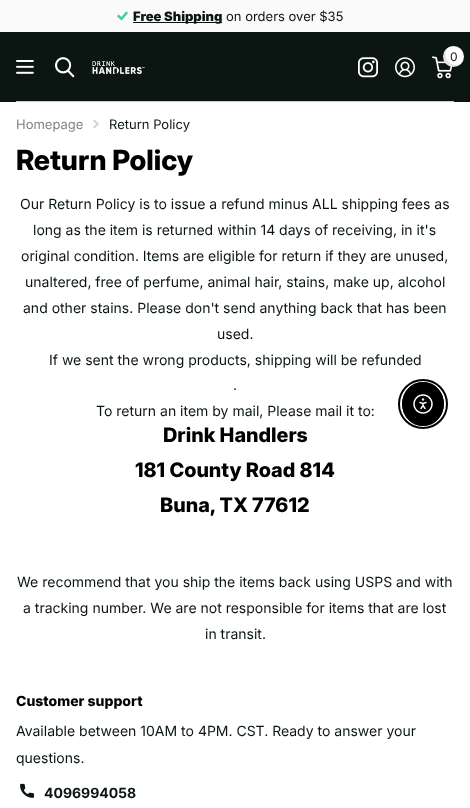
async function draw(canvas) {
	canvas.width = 470;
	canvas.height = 808;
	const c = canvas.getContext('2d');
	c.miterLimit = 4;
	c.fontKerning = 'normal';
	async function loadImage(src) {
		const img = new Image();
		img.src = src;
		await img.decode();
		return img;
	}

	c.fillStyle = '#fff';
	c.fillRect(0, 0, 470, 808);
	c.fillStyle = '#fafafa';
	c.fillRect(0, 0, 470, 32);
	c.drawImage(await loadImage('img1.png'), 117, 11, 11, 10);
	c.fillStyle = '#0b1613';
	c.fillRect(133, 22, 89, 1);
	c.font = '900 13px Inter';
	c.fillText('Free Shipping', 133, 21);
	c.font = '13px Inter';
	c.fillText('on orders over $35', 226, 21);
	c.fillRect(0, 32, 470, 70);
	c.drawImage(await loadImage('img2.png'), 16, 60, 18, 14);
	c.drawImage(await loadImage('img3.png'), 55, 57, 20, 21);
	c.drawImage(await loadImage('img4.png'), 92, 61, 53, 14);
	c.drawImage(await loadImage('img5.png'), 358, 57, 20, 21);
	c.drawImage(await loadImage('img6.png'), 395, 57, 20, 21);
	c.drawImage(await loadImage('img7.png'), 432, 56, 21, 23);
	c.fillStyle = '#fff';
	c.beginPath();
	c.arc(453.5, 56.5, 10.5, 0, 2 * Math.PI);
	c.fill();
	c.fillStyle = '#0000001a';
	c.beginPath();
	c.moveTo(461.5, 63.5);
	c.bezierCurveTo(452, 69.5, 440.5, 57, 448, 47.5);
	c.bezierCurveTo(442.5, 51.5, 441.5, 59, 446, 64);
	c.bezierCurveTo(450.5, 68, 457.5, 68, 461.5, 63.5);
	c.closePath();
	c.fill();
	c.font = '12px Inter';
	c.fillStyle = '#0b1613';
	c.fillText('0', 450, 61);
	c.fillStyle = '#cacccc';
	c.fillRect(16, 101, 438, 1);
	c.font = '13px Inter';
	c.fillStyle = '#7e8482';
	c.fillText('Homepage', 16, 129);
	c.drawImage(await loadImage('img8.png'), 93, 119, 6, 10);
	c.fillStyle = '#0b1613';
	c.fillText('Return Policy', 109, 129);
	c.font = '800 28px Inter';
	c.fillStyle = '#000';
	c.fillText('Return Policy', 16, 170);
	c.font = '14px Inter';
	c.fillStyle = '#0b1613';
	for (const [text, x, y] of [
		['Our Return Policy is to issue a refund minus ALL shipping fees as', 20, 209],
		['long as the item is returned within 14 days of receiving, in it\'s', 33, 235],
		['original condition. Items are eligible for return if they are unused,', 21, 261],
		['unaltered, free of perfume, animal hair, stains, make up, alcohol', 25, 287],
		['and other stains. Please don\'t send anything back that has been', 23, 313],
		['used.', 217, 339],
		['If we sent the wrong products, shipping will be refunded', 49, 365],
		['.', 233, 390],
		['To return an item by mail, Please mail it to:', 96, 416],
	]) {
		c.fillText(text, x, y);
	}
	c.font = '800 20px "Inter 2"';
	c.fillStyle = '#000';
	for (const [text, x, y] of [
		['Drink Handlers', 163, 442],
		['181 County Road 814', 135, 477],
		['Buna, TX 77612', 160, 512],
	]) {
		c.fillText(text, x, y);
	}
	c.font = '14px Inter';
	c.fillStyle = '#0b1613';
	for (const [text, x, y] of [
		['We recommend that you ship the items back using USPS and with', 17, 587],
		['a tracking number. We are not responsible for items that are lost', 23, 613],
		['in transit.', 205, 639],
	]) {
		c.fillText(text, x, y);
	}
	c.font = '800 14px "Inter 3"';
	c.fillStyle = '#000';
	c.fillText('Customer support', 16, 706);
	c.font = '14px Inter';
	c.fillStyle = '#0b1613';
	c.fillText('Available between 10AM to 4PM. CST. Ready to answer your', 16, 736);
	c.fillText('questions.', 16, 763);
	c.drawImage(await loadImage('img9.png'), 20, 783, 14, 15);
	c.font = 'bold 14px Inter';
	c.fillText('4096994058', 44, 798);
	c.beginPath();
	c.arc(423, 404, 24, 0, 2 * Math.PI);
	c.strokeStyle = '#000';
	c.lineWidth = 2;
	c.stroke();
	c.fillStyle = '#000';
	c.beginPath();
	c.ellipse(423, 404, 21, 22, 0, 0, 2 * Math.PI);
	c.fill();
	c.beginPath();
	c.moveTo(423, 382.5);
	c.bezierCurveTo(450, 382.5, 450, 425.5, 423, 425.5);
	c.bezierCurveTo(396, 425.5, 396, 382.5, 423, 382.5);
	c.closePath();
	c.lineWidth = 1;
	c.stroke();
	c.drawImage(await loadImage('img10.png'), 413, 394, 20, 20);
}

draw(document.querySelector('canvas'));
